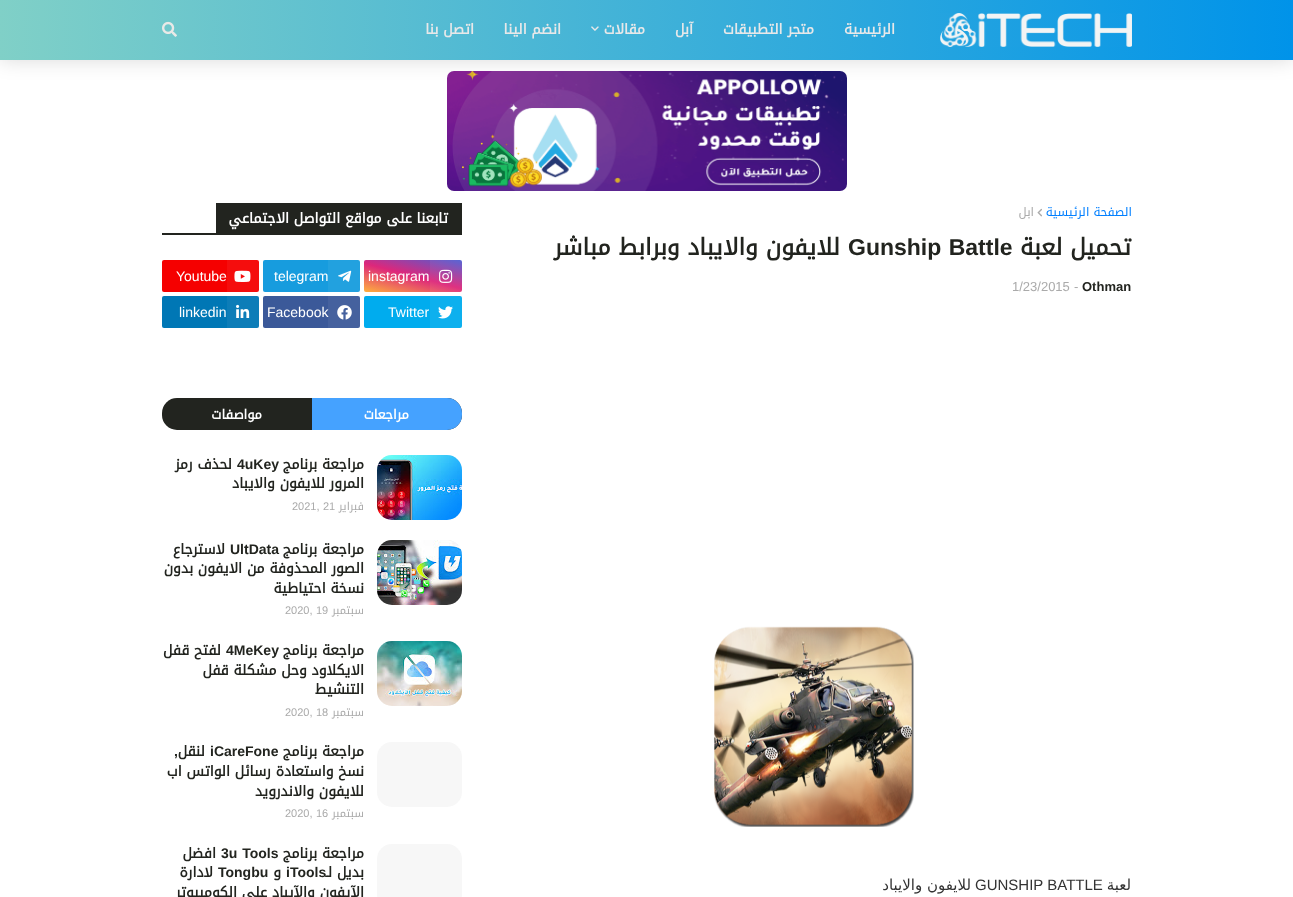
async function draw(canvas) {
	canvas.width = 1293;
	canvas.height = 897;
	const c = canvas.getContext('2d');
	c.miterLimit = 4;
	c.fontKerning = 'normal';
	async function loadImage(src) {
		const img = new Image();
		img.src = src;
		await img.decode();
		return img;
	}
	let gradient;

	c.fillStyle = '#fff';
	c.fillRect(0, 0, 1293, 897);
	c.fillStyle = '#00000026';
	c.filter = 'blur(10px)';
	c.beginPath();
	c.rect(0, 0, 1293, 60);
	c.fill();
	c.filter = 'none';
	gradient = c.createLinearGradient(1293, 30, 0, 30);
	gradient.addColorStop(0, '#0093e9');
	gradient.addColorStop(1, '#80d0c7');
	c.fillStyle = gradient;
	c.fillRect(0, 0, 1293, 60);
	c.drawImage(await loadImage('img1.png'), 940, 13, 192, 34);
	c.direction = 'rtl';
	c.font = 'bold 14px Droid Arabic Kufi';
	c.fillStyle = '#e7e8e9';
	for (const [text, x, y] of [
		['الرئيسية', 895, 34],
		['متجر التطبيقات', 814, 34],
		['آبل', 693, 34],
		['مقالات', 645, 34],
	]) {
		c.fillText(text, x, y);
	}
	c.drawImage(await loadImage('img2.png'), 591, 26, 8, 5);
	c.fillText('انضم الينا', 561, 34);
	c.fillText('اتصل بنا', 474, 34);
	c.drawImage(await loadImage('img3.png'), 162, 21, 15, 16);
	c.drawImage(await loadImage('img4.png'), 447, 71, 400, 120);
	c.font = '12px Droid Arabic Kufi';
	c.fillStyle = '#007fff';
	c.fillText('الصفحة الرئيسية', 1132, 216);
	c.drawImage(await loadImage('img5.png'), 1037, 208, 5, 9);
	c.fillStyle = '#aaa';
	c.fillText('ابل', 1034, 216);
	c.font = 'bold 23px Droid Arabic Kufi';
	c.fillStyle = '#22241f';
	c.fillText('تحميل لعبة', 1131, 255);
	c.wordSpacing = '1px';
	c.direction = 'ltr';
	c.font = 'bold 23px Liberation Sans';
	c.fillText('Gunship Battle', 848, 255);
	c.wordSpacing = '0px';
	c.direction = 'rtl';
	c.font = 'bold 23px Droid Arabic Kufi';
	c.fillText('للايفون والايباد وبرابط مباشر', 840, 255);
	c.direction = 'ltr';
	c.font = 'bold 13px Liberation Sans';
	c.fillText('Othman', 1082, 291);
	c.font = '13px Liberation Sans';
	c.fillStyle = '#aaa';
	c.fillText('-', 1074, 291);
	c.fillText('1/23/2015', 1012, 291);
	c.drawImage(await loadImage('img6.png'), 714, 626, 200, 201);
	c.direction = 'rtl';
	c.font = '15px DejaVu Sans';
	c.fillStyle = '#333';
	c.fillText('لعبة', 1131, 890);
	c.direction = 'ltr';
	c.font = '15px Liberation Sans';
	c.fillText('GUNSHIP BATTLE', 975, 890);
	c.direction = 'rtl';
	c.font = '15px DejaVu Sans';
	c.fillText('للايفون والايباد', 971, 890);
	c.fillStyle = '#22241f';
	c.fillRect(162, 233, 300, 2);
	c.fillRect(216, 203, 246, 30);
	c.font = 'bold 14px Droid Arabic Kufi';
	c.fillStyle = '#fff';
	c.fillText('تابعنا على مواقع التواصل الاجتماعي', 448, 223);
	gradient = c.createLinearGradient(406, 303, 420, 249);
	gradient.addColorStop(0, '#ffb13d');
	gradient.addColorStop(0.5, '#dd277b');
	gradient.addColorStop(1, '#4d5ed4');
	c.fillStyle = gradient;
	c.beginPath();
	c.roundRect(364, 260, 98, 32, 2);
	c.fill();
	c.fillStyle = '#ffffff0d';
	c.fillRect(430, 260, 32, 32);
	c.drawImage(await loadImage('img7.png'), 439, 269, 14, 14);
	c.direction = 'ltr';
	c.font = '14px Liberation Sans';
	c.fillStyle = '#fff';
	c.fillText('instagram', 368, 281);
	c.fillStyle = '#179cde';
	c.beginPath();
	c.roundRect(263, 260, 97, 32, 2);
	c.fill();
	c.fillStyle = '#ffffff0d';
	c.fillRect(328, 260, 32, 32);
	c.drawImage(await loadImage('img8.png'), 338, 270, 14, 12);
	c.fillStyle = '#fff';
	c.fillText('telegram', 274, 281);
	c.fillStyle = '#f50000';
	c.beginPath();
	c.roundRect(162, 260, 97, 32, 2);
	c.fill();
	c.fillStyle = '#ffffff0d';
	c.fillRect(227, 260, 32, 32);
	c.drawImage(await loadImage('img9.png'), 234, 270, 17, 12);
	c.fillStyle = '#fff';
	c.fillText('Youtube', 176, 281);
	c.fillStyle = '#00acee';
	c.beginPath();
	c.roundRect(364, 296, 98, 32, 2);
	c.fill();
	c.fillStyle = '#ffffff0d';
	c.fillRect(430, 296, 32, 32);
	c.drawImage(await loadImage('img10.png'), 438, 306, 15, 13);
	c.fillStyle = '#fff';
	c.fillText('Twitter', 388, 317);
	c.fillStyle = '#3b5999';
	c.beginPath();
	c.roundRect(263, 296, 97, 32, 2);
	c.fill();
	c.fillStyle = '#ffffff0d';
	c.fillRect(328, 296, 32, 32);
	c.drawImage(await loadImage('img11.png'), 337, 305, 15, 15);
	c.fillStyle = '#fff';
	c.fillText('Facebook', 267, 317);
	c.fillStyle = '#0077b5';
	c.beginPath();
	c.roundRect(162, 296, 97, 32, 2);
	c.fill();
	c.fillStyle = '#ffffff0d';
	c.fillRect(227, 296, 32, 32);
	c.drawImage(await loadImage('img12.png'), 236, 304, 14, 14);
	c.fillStyle = '#fff';
	c.fillText('linkedin', 179, 317);
	c.fillStyle = '#22241f';
	c.beginPath();
	c.roundRect(162, 398, 300, 32, 15);
	c.fill();
	c.fillStyle = '#45a2ff';
	c.beginPath();
	c.roundRect(312, 398, 150, 32, [0, 15, 15, 0]);
	c.fill();
	c.direction = 'rtl';
	c.font = 'bold 13px Droid Arabic Kufi';
	c.fillStyle = '#fff';
	c.fillText('مراجعات', 409, 419);
	c.fillText('مواصفات', 262, 419);
	c.fillStyle = '#f7f7f7';
	c.beginPath();
	c.roundRect(377, 455, 85, 65, 15);
	c.fill();
	c.drawImage(await loadImage('img13.png'), 377, 455, 85, 65);
	c.font = 'bold 14px Droid Arabic Kufi';
	c.fillStyle = '#22241f';
	c.fillText('مراجعة برنامج', 364, 469);
	c.direction = 'ltr';
	c.font = 'bold 14px Liberation Sans';
	c.fillText('4uKey', 237, 469);
	c.direction = 'rtl';
	c.font = 'bold 14px Droid Arabic Kufi';
	c.fillText('لحذف رمز', 232, 469);
	c.fillText('المرور للايفون والايباد', 364, 488);
	c.font = '11px Droid Arabic Kufi';
	c.fillStyle = '#aaa';
	c.fillText('فبراير', 364, 510);
	c.direction = 'ltr';
	c.font = '11px Liberation Sans';
	c.fillText('21', 323, 510);
	c.fillText('2021,', 292, 510);
	c.fillStyle = '#f7f7f7';
	c.beginPath();
	c.roundRect(377, 540, 85, 65, 15);
	c.fill();
	c.drawImage(await loadImage('img14.png'), 377, 540, 85, 65);
	c.direction = 'rtl';
	c.font = 'bold 14px Droid Arabic Kufi';
	c.fillStyle = '#22241f';
	c.fillText('مراجعة برنامج', 364, 554);
	c.direction = 'ltr';
	c.font = 'bold 14px Liberation Sans';
	c.fillText('UltData', 230, 554);
	c.direction = 'rtl';
	c.font = 'bold 14px Droid Arabic Kufi';
	for (const [text, x, y] of [
		['لاسترجاع', 225, 554],
		['الصور المحذوفة من الايفون بدون', 364, 573],
		['نسخة احتياطية', 364, 593],
	]) {
		c.fillText(text, x, y);
	}
	c.font = '11px Droid Arabic Kufi';
	c.fillStyle = '#aaa';
	c.fillText('سبتمبر', 364, 614);
	c.direction = 'ltr';
	c.font = '11px Liberation Sans';
	c.fillText('19', 316, 614);
	c.fillText('2020,', 285, 614);
	c.fillStyle = '#f7f7f7';
	c.beginPath();
	c.roundRect(377, 641, 85, 65, 15);
	c.fill();
	c.drawImage(await loadImage('img15.png'), 377, 641, 85, 65);
	c.direction = 'rtl';
	c.font = 'bold 14px Droid Arabic Kufi';
	c.fillStyle = '#22241f';
	c.fillText('مراجعة برنامج', 364, 655);
	c.direction = 'ltr';
	c.font = 'bold 14px Liberation Sans';
	c.fillText('4MeKey', 226, 655);
	c.direction = 'rtl';
	c.font = 'bold 14px Droid Arabic Kufi';
	for (const [text, x, y] of [
		['لفتح قفل', 221, 655],
		['الايكلاود وحل مشكلة قفل', 364, 675],
		['التنشيط', 364, 694],
	]) {
		c.fillText(text, x, y);
	}
	c.font = '11px Droid Arabic Kufi';
	c.fillStyle = '#aaa';
	c.fillText('سبتمبر', 364, 716);
	c.direction = 'ltr';
	c.font = '11px Liberation Sans';
	c.fillText('18', 316, 716);
	c.fillText('2020,', 285, 716);
	c.fillStyle = '#f7f7f7';
	c.beginPath();
	c.roundRect(377, 742, 85, 65, 15);
	c.fill();
	c.direction = 'rtl';
	c.font = 'bold 14px Droid Arabic Kufi';
	c.fillStyle = '#22241f';
	c.fillText('مراجعة برنامج', 364, 756);
	c.direction = 'ltr';
	c.font = 'bold 14px Liberation Sans';
	c.fillText('iCareFone', 210, 756);
	c.direction = 'rtl';
	c.font = 'bold 14px Droid Arabic Kufi';
	c.fillText('لنقل', 205, 756);
	c.font = 'bold 14px Liberation Sans';
	c.fillText(',', 178, 756);
	c.font = 'bold 14px Droid Arabic Kufi';
	c.fillText('نسخ واستعادة رسائل الواتس اب', 364, 776);
	c.fillText('للايفون والاندرويد', 364, 796);
	c.font = '11px Droid Arabic Kufi';
	c.fillStyle = '#aaa';
	c.fillText('سبتمبر', 364, 817);
	c.direction = 'ltr';
	c.font = '11px Liberation Sans';
	c.fillText('16', 316, 817);
	c.fillText('2020,', 285, 817);
	c.fillStyle = '#f7f7f7';
	c.beginPath();
	c.roundRect(377, 844, 85, 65, 15);
	c.fill();
	c.direction = 'rtl';
	c.font = 'bold 14px Droid Arabic Kufi';
	c.fillStyle = '#22241f';
	c.fillText('مراجعة برنامج', 364, 858);
	c.wordSpacing = '1px';
	c.direction = 'ltr';
	c.font = 'bold 14px Liberation Sans';
	c.fillText('3u Tools', 221, 858);
	c.wordSpacing = '0px';
	c.direction = 'rtl';
	c.font = 'bold 14px Droid Arabic Kufi';
	c.fillText('افضل', 216, 858);
	c.direction = 'ltr';
	c.font = 'bold 14px Liberation Sans';
	c.fillText('iTools', 286, 877);
	c.direction = 'rtl';
	c.font = 'bold 14px Droid Arabic Kufi';
	c.fillText('بديل لـ', 364, 877);
	c.fillText('و', 281, 877);
	c.direction = 'ltr';
	c.font = 'bold 14px Liberation Sans';
	c.fillText('Tongbu', 218, 877);
	c.direction = 'rtl';
	c.font = 'bold 14px Droid Arabic Kufi';
	c.fillText('لادارة', 213, 877);
	c.fillText('الآيفون والآيباد على الكومبيوتر', 364, 897);
}

draw(document.querySelector('canvas'));
